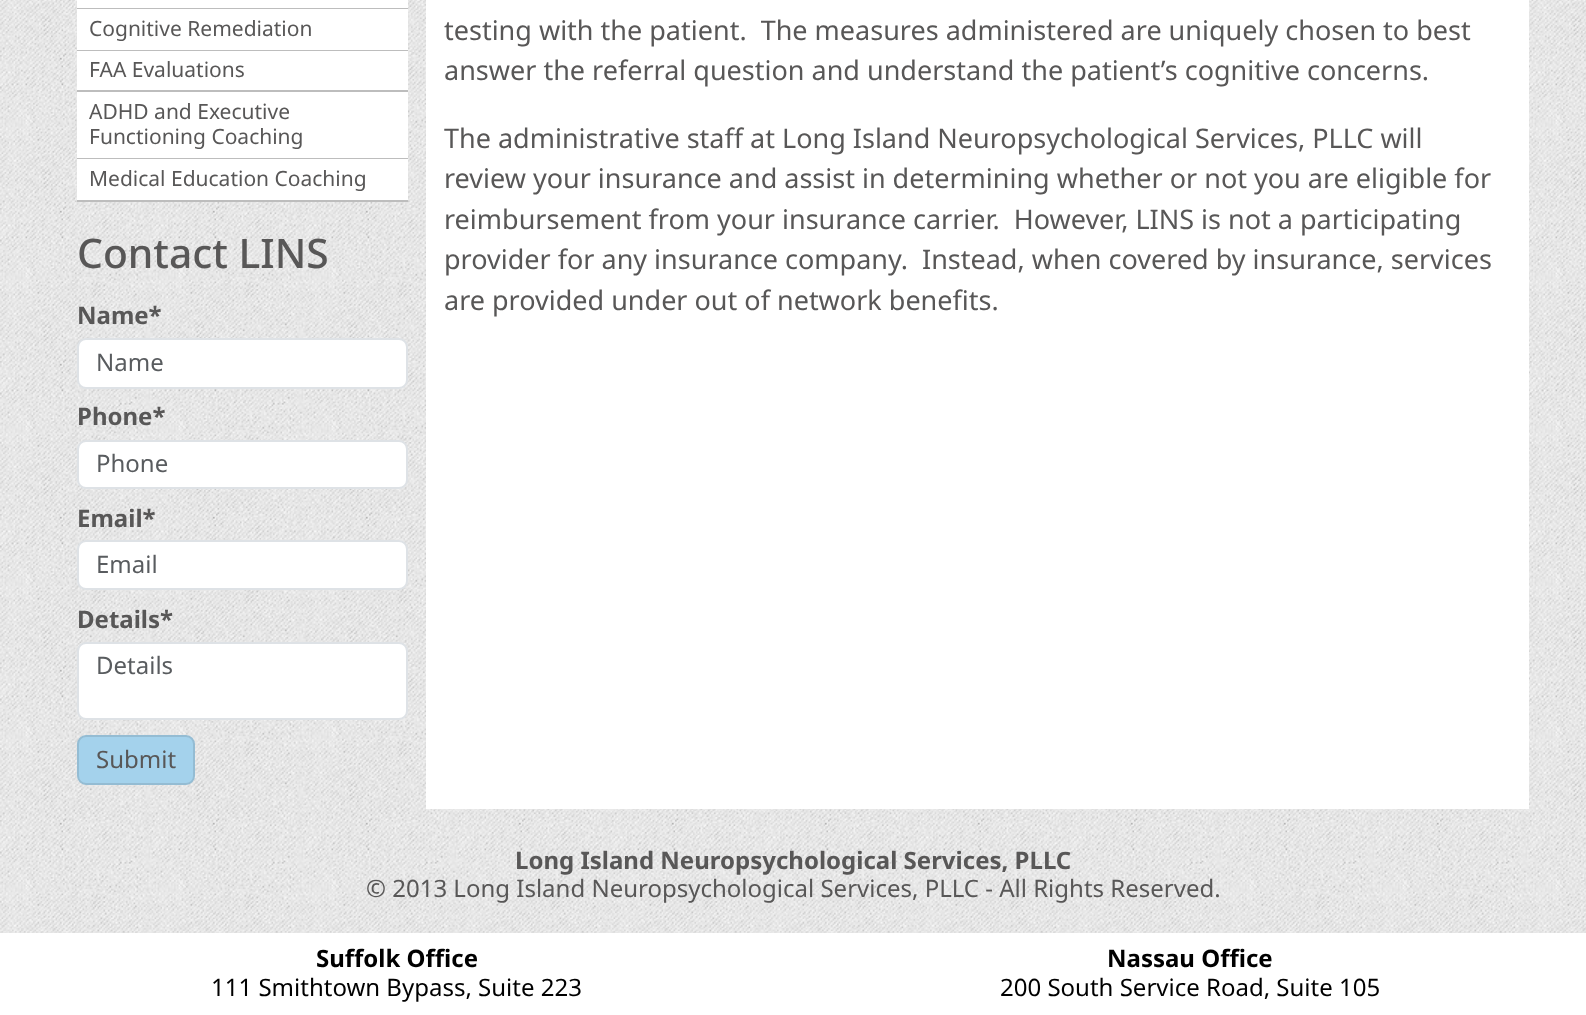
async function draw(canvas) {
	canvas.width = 1586;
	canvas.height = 1015;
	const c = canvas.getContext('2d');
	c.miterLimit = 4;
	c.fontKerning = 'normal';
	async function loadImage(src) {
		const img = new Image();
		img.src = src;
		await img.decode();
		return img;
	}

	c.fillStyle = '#fff';
	c.fillRect(0, 0, 1586, 1015);
	c.drawImage(await loadImage('img1.png'), 0, 0, 1586, 933);
	for (const [x, y, w, h, color] of [
		[77, 0, 331, 8, '#fff'],
		[77, 8, 331, 1, '#bdbdbd'],
		[77, 9, 331, 41, '#fff'],
		[77, 50, 331, 1, '#bdbdbd'],
	]) {
		c.fillStyle = color;
		c.fillRect(x, y, w, h);
	}
	c.font = '21px Noto Sans';
	c.fillStyle = '#585757';
	c.fillText('Cognitive Remediation', 89, 36);
	c.fillStyle = '#fff';
	c.fillRect(77, 51, 331, 39);
	c.fillStyle = '#bdbdbd';
	c.fillRect(77, 90, 331, 2);
	c.fillStyle = '#585757';
	c.fillText('FAA Evaluations', 89, 77);
	c.fillStyle = '#fff';
	c.fillRect(77, 92, 331, 66);
	c.fillStyle = '#bdbdbd';
	c.fillRect(77, 158, 331, 1);
	c.fillStyle = '#585757';
	c.fillText('ADHD and Executive', 89, 119);
	c.fillText('Functioning Coaching', 89, 144);
	c.fillStyle = '#fff';
	c.fillRect(77, 159, 331, 41);
	c.fillStyle = '#bdbdbd';
	c.fillRect(77, 200, 331, 2);
	c.fillStyle = '#585757';
	c.fillText('Medical Education Coaching', 89, 186);
	c.font = '500 40.75px Noto Sans';
	c.fillText('Contact LINS', 77, 268);
	c.font = 'bold 24px Noto Sans';
	c.fillText('Name*', 77, 324);
	c.fillStyle = '#fff';
	c.beginPath();
	c.roundRect(78, 339, 329, 49, 8);
	c.fill();
	c.strokeStyle = '#dee2e6';
	c.lineWidth = 2;
	c.stroke();
	c.font = '24px Noto Sans';
	c.fillStyle = '#595c5f';
	c.fillText('Name', 96, 371);
	c.font = 'bold 24px Noto Sans';
	c.fillStyle = '#585757';
	c.fillText('Phone*', 77, 425);
	c.fillStyle = '#fff';
	c.beginPath();
	c.roundRect(78, 441, 329, 47, 8);
	c.fill();
	c.stroke();
	c.font = '24px Noto Sans';
	c.fillStyle = '#595c5f';
	c.fillText('Phone', 96, 472);
	c.font = 'bold 24px Noto Sans';
	c.fillStyle = '#585757';
	c.fillText('Email*', 77, 527);
	c.fillStyle = '#fff';
	c.beginPath();
	c.roundRect(78, 541, 329, 48, 8);
	c.fill();
	c.stroke();
	c.font = '24px Noto Sans';
	c.fillStyle = '#595c5f';
	c.fillText('Email', 96, 573);
	c.font = 'bold 24px Noto Sans';
	c.fillStyle = '#585757';
	c.fillText('Details*', 77, 628);
	c.fillStyle = '#fff';
	c.beginPath();
	c.roundRect(78, 643, 329, 76, 8);
	c.fill();
	c.stroke();
	c.font = '24px Noto Sans';
	c.fillStyle = '#595c5f';
	c.fillText('Details', 96, 674);
	c.fillStyle = '#a4d2ec';
	c.beginPath();
	c.roundRect(78, 736, 116, 48, 8);
	c.fill();
	c.strokeStyle = '#94bcd3';
	c.stroke();
	c.fillStyle = '#585757';
	c.fillText('Submit', 96, 768);
	c.fillStyle = '#fff';
	c.fillRect(426, 0, 1103, 809);
	c.font = '27px Noto Sans';
	c.fillStyle = '#585757';
	for (const [text, x, y] of [
		['testing with the patient.  The measures administered are uniquely chosen to best', 444, 40],
		['answer the referral question and understand the patient’s cognitive concerns.', 444, 80],
		['The administrative staff at Long Island Neuropsychological Services, PLLC will', 444, 148],
		['review your insurance and assist in determining whether or not you are eligible for', 444, 188],
		['reimbursement from your insurance carrier.  However, LINS is not a participating', 444, 229],
		['provider for any insurance company.  Instead, when covered by insurance, services', 444, 269],
		['are provided under out of network benefits.', 444, 310],
	]) {
		c.fillText(text, x, y);
	}
	c.font = 'bold 24px Noto Sans';
	c.fillText('Long Island Neuropsychological Services, PLLC', 515, 869);
	c.font = '24px Noto Sans';
	c.fillText('© 2013 Long Island Neuropsychological Services, PLLC - All Rights Reserved.', 366, 897);
	c.font = 'bold 24px Noto Sans';
	c.fillStyle = '#000';
	c.fillText('Suffolk Office', 316, 967);
	c.font = '24px Noto Sans';
	c.fillText('111 Smithtown Bypass, Suite 223', 211, 996);
	c.font = 'bold 24px Noto Sans';
	c.fillText('Nassau Office', 1107, 967);
	c.font = '24px Noto Sans';
	c.fillText('200 South Service Road, Suite 105', 1000, 996);
}

draw(document.querySelector('canvas'));
